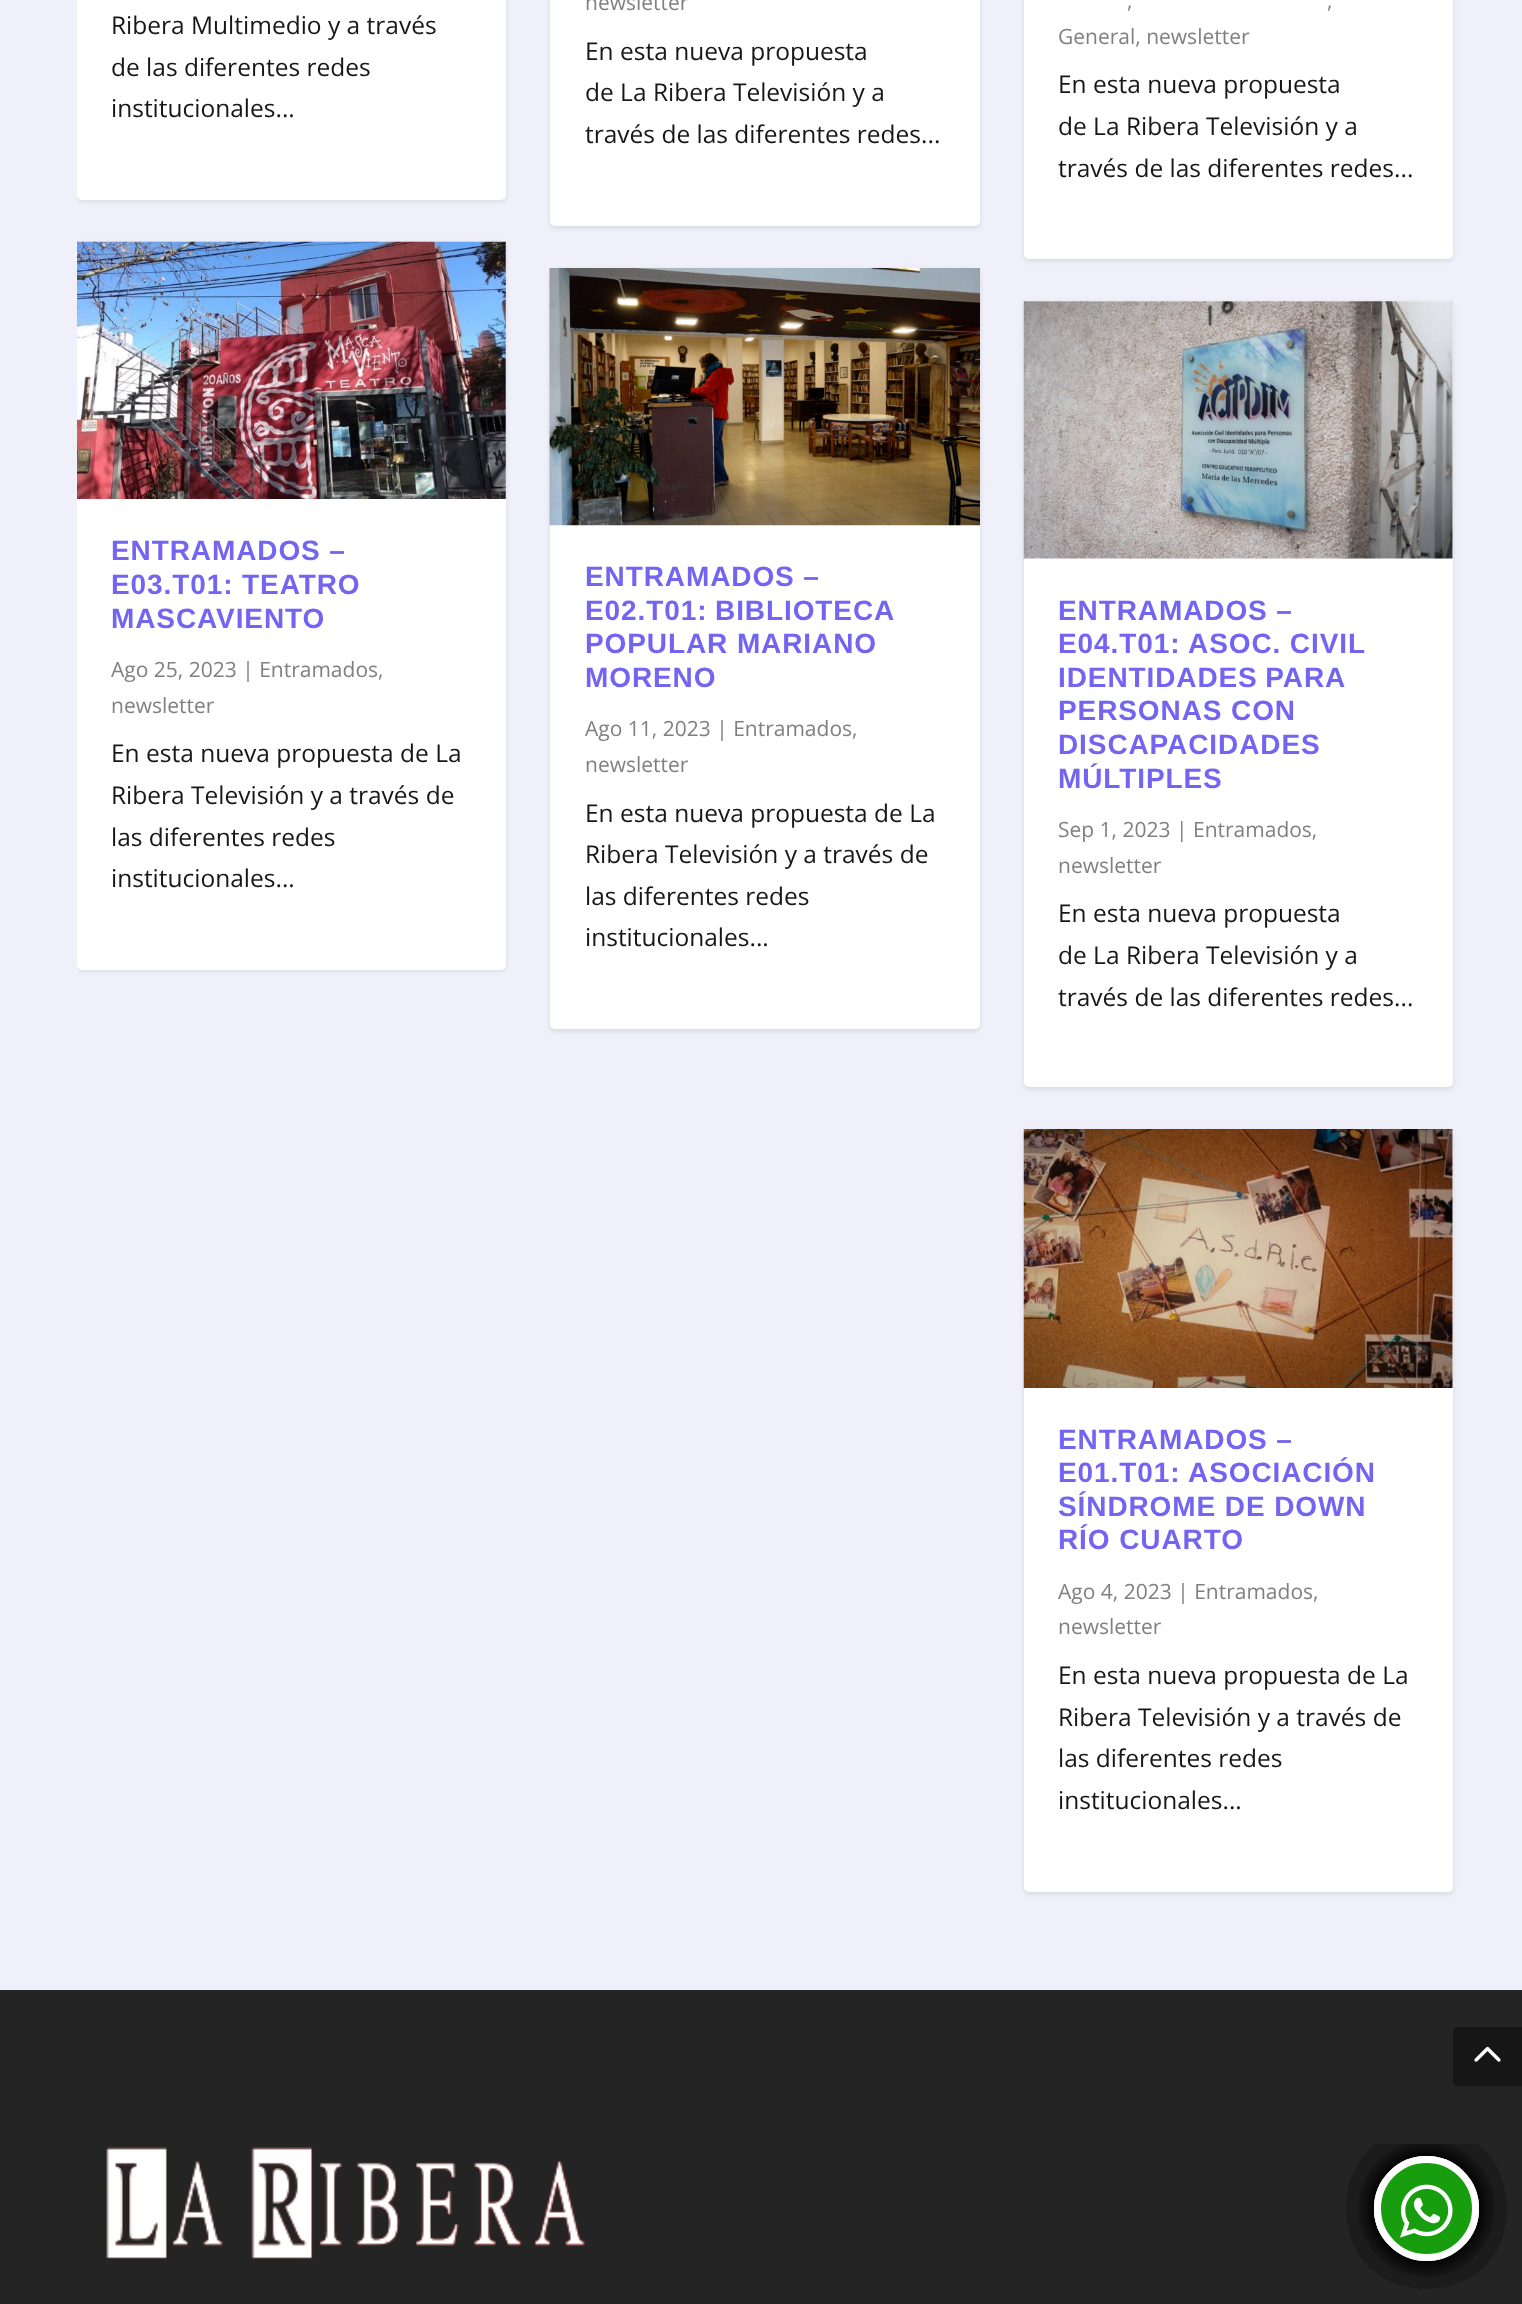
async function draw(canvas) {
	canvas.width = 1522;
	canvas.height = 2304;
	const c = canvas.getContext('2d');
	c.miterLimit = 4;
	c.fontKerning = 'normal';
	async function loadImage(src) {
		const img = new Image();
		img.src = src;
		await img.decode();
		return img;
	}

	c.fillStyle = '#eff0f9';
	c.fillRect(0, 0, 1522, 2304);
	c.save();
	c.beginPath();
	c.roundRect(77, -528, 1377, 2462, 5);
	c.clip();
	c.fillStyle = '#0000001a';
	c.filter = 'blur(2.5px)';
	c.beginPath();
	c.roundRect(77, -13, 429, 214, 5);
	c.fill();
	c.filter = 'none';
	c.restore();
	c.fillStyle = '#fff';
	c.beginPath();
	c.roundRect(77, -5, 429, 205, 5);
	c.fill();
	c.font = '24.5px Open Sans';
	c.fillStyle = '#171717';
	for (const [text, x, y] of [
		['Ribera Multimedio y a través', 111, 34],
		['de las diferentes redes', 111, 76],
		['institucionales...', 111, 117],
	]) {
		c.fillText(text, x, y);
	}
	c.save();
	c.beginPath();
	c.roundRect(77, -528, 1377, 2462, 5);
	c.clip();
	c.fillStyle = '#0000001a';
	c.filter = 'blur(2.5px)';
	c.beginPath();
	c.roundRect(77, 243, 429, 728, 5);
	c.fill();
	c.filter = 'none';
	c.restore();
	c.fillStyle = '#fff';
	c.beginPath();
	c.roundRect(77, 242, 429, 728, 5);
	c.fill();
	c.drawImage(await loadImage('img1.png'), 77, 241, 429, 258);
	c.letterSpacing = '0.9px';
	c.font = 'bold 28px Liberation Sans';
	c.fillStyle = '#7464f2';
	for (const [text, x, y] of [
		['ENTRAMADOS –', 111, 560],
		['E03.T01: TEATRO', 111, 594],
		['MASCAVIENTO', 111, 628],
	]) {
		c.fillText(text, x, y);
	}
	c.letterSpacing = '0px';
	c.font = '21px Open Sans';
	c.fillStyle = '#808080';
	c.fillText('Ago 25, 2023 | Entramados,', 111, 677);
	c.fillText('newsletter', 111, 713);
	c.font = '24.5px Open Sans';
	c.fillStyle = '#171717';
	for (const [text, x, y] of [
		['En esta nueva propuesta de La', 111, 762],
		['Ribera Televisión y a través de', 111, 804],
		['las diferentes redes', 111, 846],
		['institucionales...', 111, 887],
	]) {
		c.fillText(text, x, y);
	}
	c.fillStyle = '#242424';
	c.fillRect(0, 1990, 1522, 314);
	c.fillStyle = '#00000066';
	c.filter = 'blur(13px)';
	c.beginPath();
	c.roundRect(1374, 2156, 105, 105, 52.5);
	c.fill();
	c.filter = 'none';
	c.beginPath();
	c.arc(1426.5, 2208.5, 49, 0, 2 * Math.PI);
	c.strokeStyle = '#fff';
	c.lineWidth = 7;
	c.stroke();
	c.fillStyle = '#0000001a';
	c.filter = 'blur(2.5px)';
	c.beginPath();
	c.roundRect(550, -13, 430, 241, 5);
	c.fill();
	c.filter = 'none';
	c.fillStyle = '#fff';
	c.beginPath();
	c.roundRect(550, -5, 430, 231, 5);
	c.fill();
	c.font = '21px Open Sans';
	c.fillStyle = '#808080';
	c.fillText('newsletter', 585, 10);
	c.font = '24.5px Open Sans';
	c.fillStyle = '#171717';
	for (const [text, x, y] of [
		['En esta nueva propuesta', 585, 60],
		['de La Ribera Televisión y a', 585, 101],
		['través de las diferentes redes...', 585, 143],
	]) {
		c.fillText(text, x, y);
	}
	c.fillStyle = '#0000001a';
	c.filter = 'blur(2.5px)';
	c.beginPath();
	c.roundRect(550, 270, 430, 761, 5);
	c.fill();
	c.filter = 'none';
	c.fillStyle = '#fff';
	c.beginPath();
	c.roundRect(550, 268, 430, 761, 5);
	c.fill();
	c.drawImage(await loadImage('img2.png'), 549, 268, 431, 258);
	c.letterSpacing = '0.9px';
	c.font = 'bold 28px Liberation Sans';
	c.fillStyle = '#7464f2';
	c.fillText('ENTRAMADOS –', 585, 586);
	c.wordSpacing = '-1px';
	c.fillText('E02.T01: BIBLIOTECA', 585, 620);
	c.wordSpacing = '0px';
	c.fillText('POPULAR MARIANO', 585, 653);
	c.fillText('MORENO', 585, 687);
	c.letterSpacing = '0px';
	c.font = '21px Open Sans';
	c.fillStyle = '#808080';
	c.fillText('Ago 11, 2023 | Entramados,', 585, 736);
	c.fillText('newsletter', 585, 772);
	c.font = '24.5px Open Sans';
	c.fillStyle = '#171717';
	for (const [text, x, y] of [
		['En esta nueva propuesta de La', 585, 822],
		['Ribera Televisión y a través de', 585, 863],
		['las diferentes redes', 585, 905],
		['institucionales...', 585, 946],
	]) {
		c.fillText(text, x, y);
	}
	c.fillStyle = '#00000066';
	c.filter = 'blur(13px)';
	c.beginPath();
	c.roundRect(1374, 2156, 105, 105, 52.5);
	c.fill();
	c.filter = 'none';
	c.beginPath();
	c.arc(1426.5, 2208.5, 49, 0, 2 * Math.PI);
	c.stroke();
	c.fillStyle = '#0000001a';
	c.filter = 'blur(2.5px)';
	c.beginPath();
	c.roundRect(1024, -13, 429, 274, 5);
	c.fill();
	c.filter = 'none';
	c.fillStyle = '#fff';
	c.beginPath();
	c.roundRect(1024, -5, 429, 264, 5);
	c.fill();
	c.font = '21px Open Sans';
	c.fillStyle = '#808080';
	for (const [text, x, y] of [
		[',', 1127, 8],
		[',', 1327, 8],
		['General, newsletter', 1058, 44],
	]) {
		c.fillText(text, x, y);
	}
	c.font = '24.5px Open Sans';
	c.fillStyle = '#171717';
	for (const [text, x, y] of [
		['En esta nueva propuesta', 1058, 93],
		['de La Ribera Televisión y a', 1058, 135],
		['través de las diferentes redes...', 1058, 177],
	]) {
		c.fillText(text, x, y);
	}
	c.fillStyle = '#0000001a';
	c.filter = 'blur(2.5px)';
	c.beginPath();
	c.roundRect(1024, 303, 429, 786, 5);
	c.fill();
	c.filter = 'none';
	c.fillStyle = '#fff';
	c.beginPath();
	c.roundRect(1024, 301, 429, 786, 5);
	c.fill();
	c.drawImage(await loadImage('img3.png'), 1023, 301, 430, 258);
	c.letterSpacing = '0.9px';
	c.font = 'bold 28px Liberation Sans';
	c.fillStyle = '#7464f2';
	c.fillText('ENTRAMADOS –', 1058, 620);
	c.fillText('E04.T01: ASOC. CIVIL', 1058, 653);
	c.wordSpacing = '-1px';
	c.fillText('IDENTIDADES PARA', 1058, 687);
	c.wordSpacing = '0px';
	for (const [text, x, y] of [
		['PERSONAS CON', 1058, 720],
		['DISCAPACIDADES', 1058, 754],
		['MÚLTIPLES', 1058, 788],
	]) {
		c.fillText(text, x, y);
	}
	c.letterSpacing = '0px';
	c.font = '21px Open Sans';
	c.fillStyle = '#808080';
	c.fillText('Sep 1, 2023 | Entramados,', 1058, 837);
	c.fillText('newsletter', 1058, 873);
	c.font = '24.5px Open Sans';
	c.fillStyle = '#171717';
	for (const [text, x, y] of [
		['En esta nueva propuesta', 1058, 922],
		['de La Ribera Televisión y a', 1058, 964],
		['través de las diferentes redes...', 1058, 1006],
	]) {
		c.fillText(text, x, y);
	}
	c.fillStyle = '#0000001a';
	c.filter = 'blur(2.5px)';
	c.beginPath();
	c.roundRect(1024, 1131, 429, 763, 5);
	c.fill();
	c.filter = 'none';
	c.fillStyle = '#fff';
	c.beginPath();
	c.roundRect(1024, 1129, 429, 763, 5);
	c.fill();
	c.drawImage(await loadImage('img4.png'), 1023, 1129, 430, 259);
	c.letterSpacing = '0.9px';
	c.font = 'bold 28px Liberation Sans';
	c.fillStyle = '#7464f2';
	for (const [text, x, y] of [
		['ENTRAMADOS –', 1058, 1449],
		['E01.T01: ASOCIACIÓN', 1058, 1482],
		['SÍNDROME DE DOWN', 1058, 1516],
		['RÍO CUARTO', 1058, 1549],
	]) {
		c.fillText(text, x, y);
	}
	c.letterSpacing = '0px';
	c.font = '21px Open Sans';
	c.fillStyle = '#808080';
	c.fillText('Ago 4, 2023 | Entramados,', 1058, 1599);
	c.fillText('newsletter', 1058, 1634);
	c.font = '24.5px Open Sans';
	c.fillStyle = '#171717';
	for (const [text, x, y] of [
		['En esta nueva propuesta de La', 1058, 1684],
		['Ribera Televisión y a través de', 1058, 1726],
		['las diferentes redes', 1058, 1767],
		['institucionales...', 1058, 1809],
	]) {
		c.fillText(text, x, y);
	}
	c.drawImage(await loadImage('img5.png'), 106, 2147, 479, 113);
	c.fillStyle = '#161616';
	c.beginPath();
	c.moveTo(1458, 2027);
	c.lineTo(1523, 2027);
	c.lineTo(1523, 2086);
	c.lineTo(1458, 2086);
	c.bezierCurveTo(1455, 2086, 1453, 2084, 1453, 2081);
	c.lineTo(1453, 2032);
	c.bezierCurveTo(1453, 2029, 1455, 2027, 1458, 2027);
	c.closePath();
	c.fill();
	c.drawImage(await loadImage('img6.png'), 1474, 2046, 27, 16);
	c.fillStyle = '#00000066';
	c.filter = 'blur(13px)';
	c.beginPath();
	c.roundRect(1374, 2156, 105, 105, 52.5);
	c.fill();
	c.filter = 'none';
	c.beginPath();
	c.arc(1426.5, 2208.5, 49, 0, 2 * Math.PI);
	c.stroke();
	c.filter = 'blur(13px)';
	c.beginPath();
	c.roundRect(1374, 2156, 105, 105, 52.5);
	c.fill();
	c.filter = 'none';
	c.beginPath();
	c.arc(1426.5, 2208.5, 49, 0, 2 * Math.PI);
	c.stroke();
	c.filter = 'blur(13px)';
	c.beginPath();
	c.roundRect(1374, 2156, 105, 105, 52.5);
	c.fill();
	c.filter = 'none';
	c.beginPath();
	c.arc(1426.5, 2208.5, 49, 0, 2 * Math.PI);
	c.stroke();
	c.filter = 'blur(13px)';
	c.beginPath();
	c.roundRect(1374, 2156, 105, 105, 52.5);
	c.fill();
	c.filter = 'none';
	c.beginPath();
	c.arc(1426.5, 2208.5, 49, 0, 2 * Math.PI);
	c.stroke();
	c.filter = 'blur(13px)';
	c.beginPath();
	c.roundRect(1374, 2156, 105, 105, 52.5);
	c.fill();
	c.filter = 'none';
	c.beginPath();
	c.arc(1426.5, 2208.5, 49, 0, 2 * Math.PI);
	c.stroke();
	c.filter = 'blur(13px)';
	c.beginPath();
	c.roundRect(1374, 2156, 105, 105, 52.5);
	c.fill();
	c.filter = 'none';
	c.fillStyle = '#189d0e';
	c.beginPath();
	c.arc(1426.5, 2208.5, 49, 0, 2 * Math.PI);
	c.fill();
	c.stroke();
	c.fillStyle = '#242424';
	c.beginPath();
	c.roundRect(1332, 2095, 189, 49, 9);
	c.fill();
	c.drawImage(await loadImage('img7.png'), 1400, 2184, 53, 54);
}

draw(document.querySelector('canvas'));
